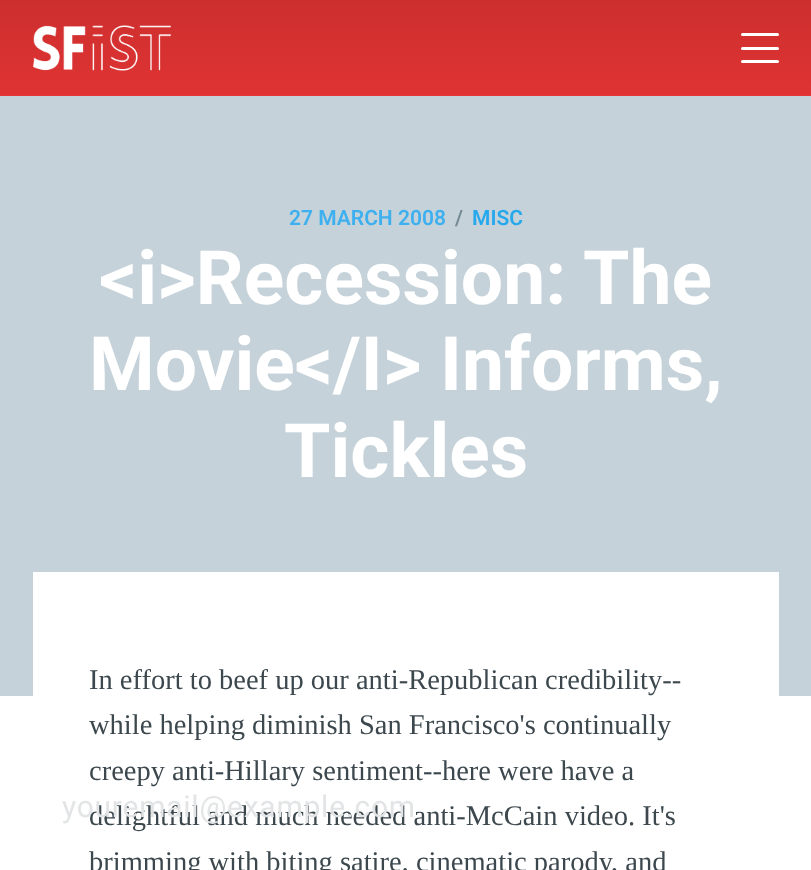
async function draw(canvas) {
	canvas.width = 811;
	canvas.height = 870;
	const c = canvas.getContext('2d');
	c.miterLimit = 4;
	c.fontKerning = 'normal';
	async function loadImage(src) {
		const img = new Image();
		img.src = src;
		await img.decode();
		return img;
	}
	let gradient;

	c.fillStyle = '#e43434';
	c.fillRect(0, 0, 811, 870);
	gradient = c.createLinearGradient(406, 0, 406, 120);
	gradient.addColorStop(0, '#0000001a');
	gradient.addColorStop(1, '#00000000');
	c.fillStyle = gradient;
	c.fillRect(0, 0, 811, 94);
	c.drawImage(await loadImage('img1.png'), 33, 25, 138, 46);
	c.fillStyle = '#fff';
	c.beginPath();
	c.roundRect(741, 33, 38, 3, 1.5);
	c.fill();
	c.beginPath();
	c.roundRect(741, 47, 38, 3, 1.5);
	c.fill();
	c.beginPath();
	c.roundRect(741, 60, 38, 3, 1.5);
	c.fill();
	c.fillRect(0, 696, 811, 174);
	c.fillStyle = '#c5d2d9';
	c.fillRect(0, 96, 811, 600);
	c.font = '600 21px Roboto';
	c.fillStyle = '#3eb0ef';
	c.fillText('27 MARCH 2008', 289, 225);
	c.fillStyle = '#738a94';
	c.fillText('/', 455, 225);
	c.fillStyle = '#26a8ed';
	c.fillText('MISC', 472, 225);
	c.font = 'bold 75px Roboto';
	c.fillStyle = '#fff';
	for (const [text, x, y] of [
		['<i>Recession: The', 99, 304],
		['Movie<\/I> Informs,', 89, 390],
		['Tickles', 284, 477],
	]) {
		c.fillText(text, x, y);
	}
	c.fillRect(33, 572, 746, 124);
	c.font = '28.5px Liberation Serif';
	c.fillStyle = '#3c484e';
	for (const [text, x, y] of [
		['In effort to beef up our anti-Republican credibility--', 89, 689],
		['while helping diminish San Francisco\'s continually', 89, 734],
		['creepy anti-Hillary sentiment--here were have a', 89, 780],
		['delightful and much needed anti-McCain video. It\'s', 89, 825],
		['brimming with biting satire, cinematic parody, and', 89, 871],
	]) {
		c.fillText(text, x, y);
	}
	c.letterSpacing = '0.75px';
	c.font = '30px Roboto';
	c.fillStyle = '#e2e4e5';
	c.fillText('youremail@example.com', 62, 817);
}

draw(document.querySelector('canvas'));
